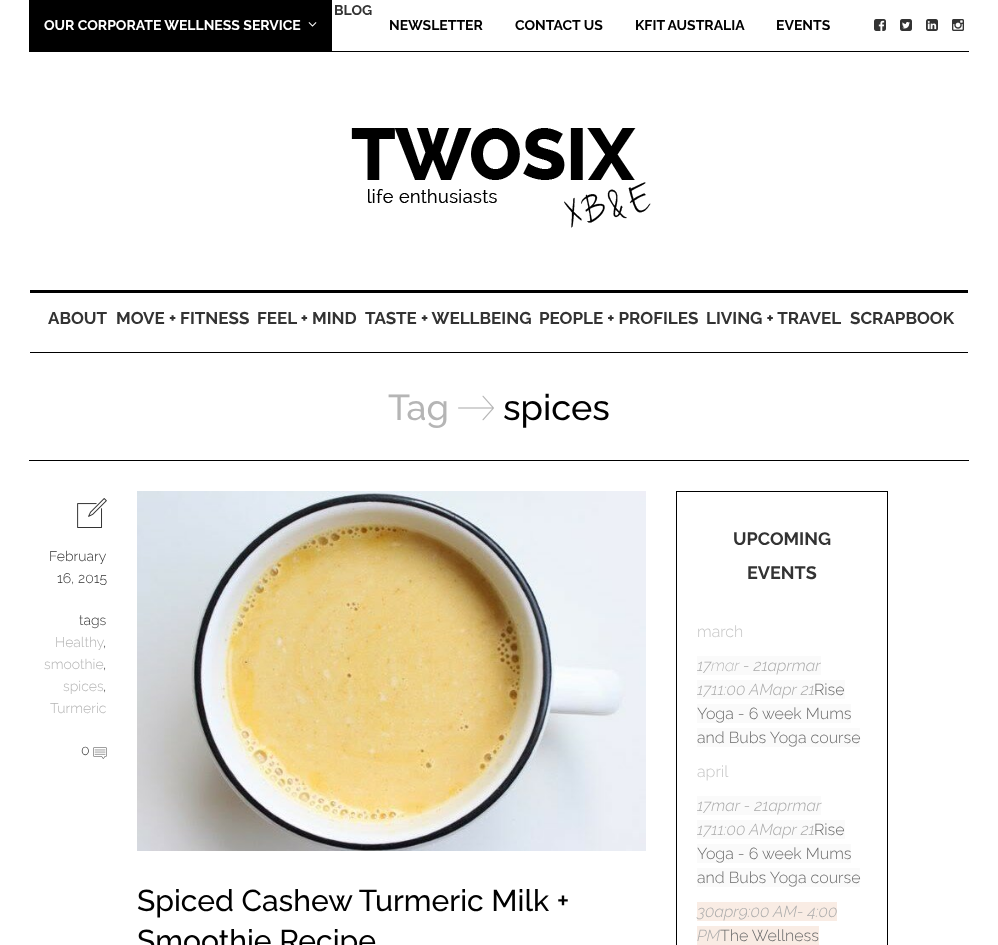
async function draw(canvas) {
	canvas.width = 998;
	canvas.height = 945;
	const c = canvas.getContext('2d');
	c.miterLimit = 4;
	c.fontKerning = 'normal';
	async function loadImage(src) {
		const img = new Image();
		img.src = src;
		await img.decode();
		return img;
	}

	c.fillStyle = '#fff';
	c.fillRect(0, 0, 998, 945);
	c.fillStyle = '#000';
	c.fillRect(29, 51, 940, 1);
	c.font = 'bold 14px Raleway';
	c.fillStyle = '#333';
	c.fillText('BLOG', 334, 15);
	c.fillStyle = '#000';
	c.fillRect(29, 0, 303, 51);
	c.fillStyle = '#fff';
	c.fillText('OUR CORPORATE WELLNESS SERVICE', 44, 30);
	c.drawImage(await loadImage('img1.png'), 308, 22, 9, 5);
	c.fillStyle = '#000';
	for (const [text, x, y] of [
		['NEWSLETTER', 389, 30],
		['CONTACT US', 515, 30],
		['KFIT AUSTRALIA', 635, 30],
		['EVENTS', 776, 30],
	]) {
		c.fillText(text, x, y);
	}
	c.drawImage(await loadImage('img2.png'), 874, 19, 12, 12);
	c.drawImage(await loadImage('img3.png'), 900, 19, 12, 12);
	c.drawImage(await loadImage('img4.png'), 926, 19, 12, 12);
	c.drawImage(await loadImage('img5.png'), 952, 19, 12, 12);
	c.drawImage(await loadImage('img6.png'), 351, 128, 300, 100);
	c.fillRect(30, 290, 938, 3);
	c.fillRect(30, 352, 938, 1);
	c.font = 'bold 17px Raleway';
	c.fillStyle = '#333';
	for (const [text, x, y] of [
		['ABOUT', 48, 324],
		['MOVE + FITNESS', 116, 324],
		['FEEL + MIND', 257, 324],
		['TASTE + WELLBEING', 365, 324],
		['PEOPLE + PROFILES', 539, 324],
		['LIVING + TRAVEL', 706, 324],
		['SCRAPBOOK', 850, 324],
	]) {
		c.fillText(text, x, y);
	}
	c.fillStyle = '#000';
	c.fillRect(29, 460, 940, 1);
	c.font = '500 36px Raleway';
	c.fillStyle = '#b5b5b5';
	c.fillText('Tag', 388, 420);
	c.drawImage(await loadImage('img7.png'), 458, 395, 36, 26);
	c.fillStyle = '#000';
	c.fillText('spices', 503, 420);
	c.drawImage(await loadImage('img8.png'), 77, 498, 30, 30);
	c.font = '300 14px Raleway';
	c.fillStyle = '#333';
	for (const [text, x, y] of [
		['February', 49, 561],
		['16, 2015', 57, 583],
		['tags', 79, 625],
	]) {
		c.fillText(text, x, y);
	}
	c.fillStyle = '#b5b5b5';
	c.fillText('Healthy', 55, 647);
	c.fillStyle = '#333';
	c.fillText(',', 103, 647);
	c.fillStyle = '#b5b5b5';
	c.fillText('smoothie', 44, 669);
	c.fillStyle = '#333';
	c.fillText(',', 103, 669);
	c.fillStyle = '#b5b5b5';
	c.fillText('spices', 63, 691);
	c.fillStyle = '#333';
	c.fillText(',', 103, 691);
	c.fillStyle = '#b5b5b5';
	c.fillText('Turmeric', 50, 713);
	c.fillStyle = '#333';
	c.fillText('0', 81, 755);
	c.drawImage(await loadImage('img9.png'), 93, 747, 14, 12);
	c.drawImage(await loadImage('img10.png'), 137, 491, 509, 360);
	c.font = '500 30px Raleway';
	c.fillStyle = '#000';
	c.fillText('Spiced Cashew Turmeric Milk +', 137, 911);
	c.fillText('Smoothie Recipe', 137, 951);
	c.strokeStyle = '#000';
	c.strokeRect(676.5, 491.5, 211, 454);
	c.font = 'bold 18px Raleway';
	c.fillStyle = '#333';
	c.fillText('UPCOMING', 733, 545);
	c.fillText('EVENTS', 747, 579);
	c.font = '300 16px Raleway';
	c.fillStyle = '#c6c6c6';
	c.fillText('march', 697, 637);
	c.fillStyle = '#fafafa';
	c.fillRect(697, 656, 124, 19);
	c.font = 'italic 300 16px Raleway';
	c.fillStyle = '#ababab';
	c.fillText('17', 697, 671);
	c.font = 'italic 200 16px Raleway';
	c.fillText('mar', 711, 671);
	c.font = 'italic 300 16px Raleway';
	c.fillText('- 21aprmar', 743, 671);
	c.fillStyle = '#fafafa';
	c.fillRect(697, 680, 148, 19);
	c.fillStyle = '#ababab';
	c.fillText('1711:00 AMapr 21', 697, 695);
	c.font = '300 16px Raleway';
	c.fillStyle = '#6b6b6b';
	c.fillText('Rise', 814, 695);
	c.fillStyle = '#fafafa';
	c.fillRect(697, 704, 154, 19);
	c.fillStyle = '#6b6b6b';
	c.fillText('Yoga - 6 week Mums', 697, 719);
	c.fillStyle = '#fafafa';
	c.fillRect(697, 728, 163, 19);
	c.fillStyle = '#6b6b6b';
	c.fillText('and Bubs Yoga course', 697, 743);
	c.fillStyle = '#c6c6c6';
	c.fillText('april', 697, 777);
	c.fillStyle = '#fafafa';
	c.fillRect(697, 796, 124, 19);
	c.font = 'italic 300 16px Raleway';
	c.fillStyle = '#ababab';
	c.fillText('17mar - 21aprmar', 697, 811);
	c.fillStyle = '#fafafa';
	c.fillRect(697, 820, 148, 19);
	c.fillStyle = '#ababab';
	c.fillText('1711:00 AMapr 21', 697, 835);
	c.font = '300 16px Raleway';
	c.fillStyle = '#6b6b6b';
	c.fillText('Rise', 814, 835);
	c.fillStyle = '#fafafa';
	c.fillRect(697, 844, 154, 19);
	c.fillStyle = '#6b6b6b';
	c.fillText('Yoga - 6 week Mums', 697, 859);
	c.fillStyle = '#fafafa';
	c.fillRect(697, 868, 163, 19);
	c.fillStyle = '#6b6b6b';
	c.fillText('and Bubs Yoga course', 697, 883);
	c.fillStyle = '#f9ece4';
	c.fillRect(697, 902, 140, 19);
	c.font = 'italic 300 16px Raleway';
	c.fillStyle = '#ababab';
	c.fillText('30apr9:00 AM- 4:00', 697, 917);
	c.fillStyle = '#f9ece4';
	c.fillRect(697, 926, 122, 19);
	c.fillStyle = '#ababab';
	c.fillText('PM', 697, 941);
	c.font = '300 16px Raleway';
	c.fillStyle = '#6b6b6b';
	c.fillText('The Wellness', 720, 941);
}

draw(document.querySelector('canvas'));
